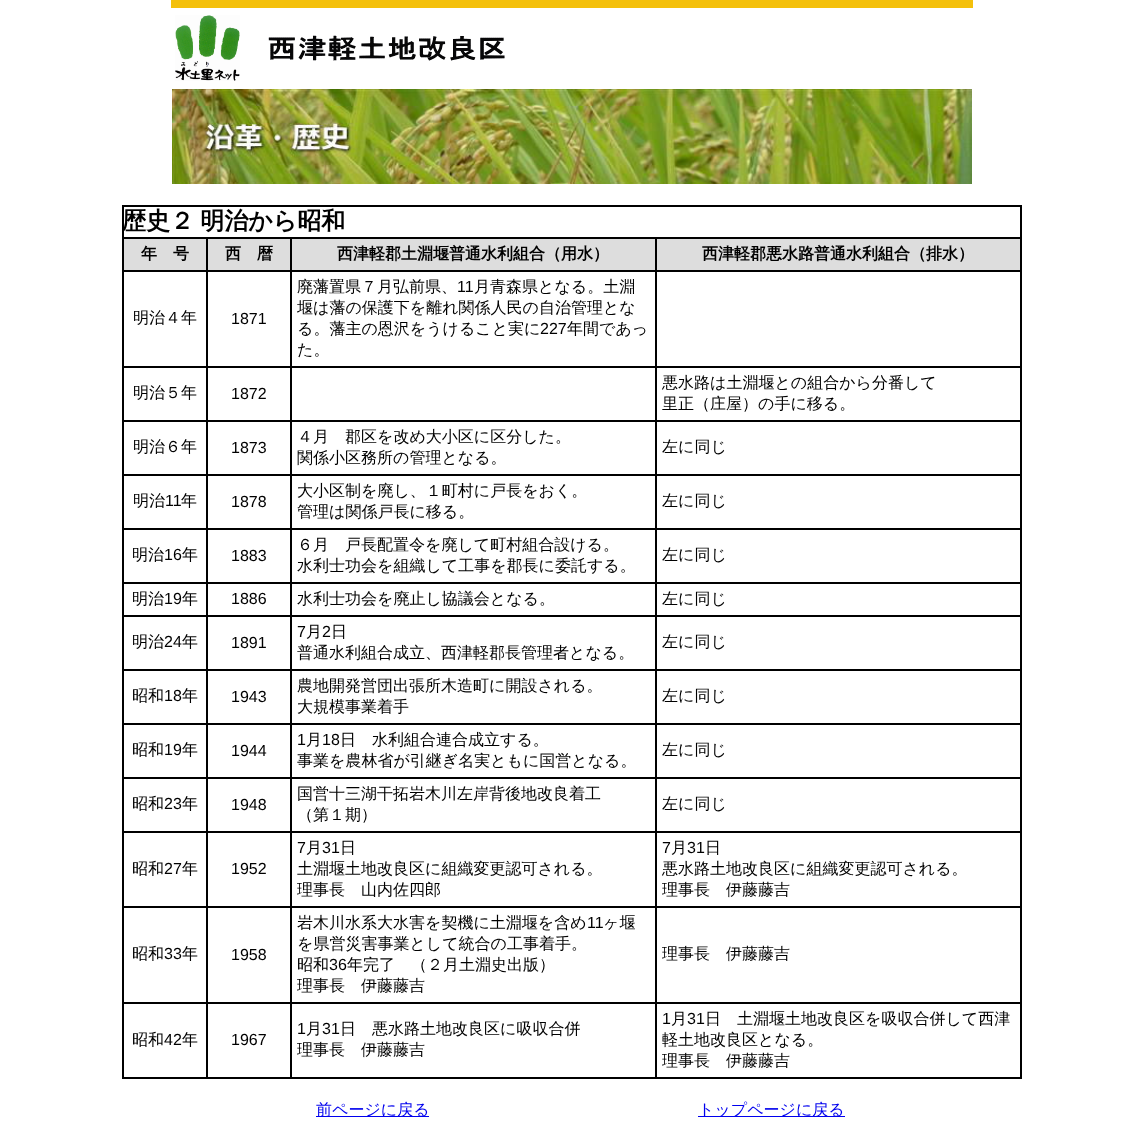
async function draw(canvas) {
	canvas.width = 1144;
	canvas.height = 1132;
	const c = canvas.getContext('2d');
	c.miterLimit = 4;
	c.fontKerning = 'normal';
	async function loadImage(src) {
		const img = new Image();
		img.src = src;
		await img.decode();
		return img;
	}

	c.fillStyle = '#fff';
	c.fillRect(0, 0, 1144, 1132);
	c.fillStyle = '#f4c00b';
	c.fillRect(171, 0, 802, 8);
	c.drawImage(await loadImage('img1.png'), 175, 15, 65, 66);
	c.drawImage(await loadImage('img2.png'), 268, 35, 237, 26);
	c.drawImage(await loadImage('img3.png'), 172, 89, 800, 95);
	for (const [x, y, w, h, color] of [
		[122, 205, 900, 2, '#000'],
		[1020, 205, 2, 874, '#000'],
		[122, 1077, 900, 2, '#000'],
		[122, 205, 2, 874, '#000'],
	]) {
		c.fillStyle = color;
		c.fillRect(x, y, w, h);
	}
	c.wordSpacing = '-1px';
	c.font = 'bold 24px WenQuanYi Zen Hei';
	c.fillText('歴史２ 明治から昭和', 122, 229);
	for (const [x, y, w, h, color] of [
		[124, 239, 82, 31, '#ddd'],
		[655, 237, 367, 2, '#000'],
		[655, 270, 367, 2, '#000'],
		[655, 366, 367, 2, '#000'],
		[655, 420, 367, 2, '#000'],
		[655, 474, 367, 2, '#000'],
		[655, 528, 367, 2, '#000'],
		[655, 582, 367, 2, '#000'],
		[655, 615, 367, 2, '#000'],
		[655, 669, 367, 2, '#000'],
		[655, 723, 367, 2, '#000'],
		[655, 777, 367, 2, '#000'],
		[655, 831, 367, 2, '#000'],
		[655, 906, 367, 2, '#000'],
		[655, 1002, 367, 2, '#000'],
		[655, 1002, 2, 77, '#000'],
		[290, 1002, 367, 2, '#000'],
		[655, 906, 2, 98, '#000'],
		[290, 906, 367, 2, '#000'],
		[655, 831, 2, 77, '#000'],
		[290, 831, 367, 2, '#000'],
		[655, 777, 2, 56, '#000'],
		[290, 777, 367, 2, '#000'],
		[655, 723, 2, 56, '#000'],
		[290, 723, 367, 2, '#000'],
		[655, 669, 2, 56, '#000'],
		[290, 669, 367, 2, '#000'],
		[655, 615, 2, 56, '#000'],
		[290, 615, 367, 2, '#000'],
		[655, 582, 2, 35, '#000'],
		[290, 582, 367, 2, '#000'],
		[655, 528, 2, 56, '#000'],
		[290, 528, 367, 2, '#000'],
		[655, 474, 2, 56, '#000'],
		[290, 474, 367, 2, '#000'],
		[655, 420, 2, 56, '#000'],
		[290, 420, 367, 2, '#000'],
		[655, 366, 2, 56, '#000'],
		[290, 366, 367, 2, '#000'],
		[655, 270, 2, 98, '#000'],
		[290, 270, 367, 2, '#000'],
		[655, 237, 2, 35, '#000'],
		[290, 237, 367, 2, '#000'],
		[290, 1002, 2, 77, '#000'],
		[206, 1002, 86, 2, '#000'],
		[290, 906, 2, 98, '#000'],
		[206, 906, 86, 2, '#000'],
		[290, 831, 2, 77, '#000'],
		[206, 831, 86, 2, '#000'],
		[290, 777, 2, 56, '#000'],
		[206, 777, 86, 2, '#000'],
		[290, 723, 2, 56, '#000'],
		[206, 723, 86, 2, '#000'],
		[290, 669, 2, 56, '#000'],
		[206, 669, 86, 2, '#000'],
		[290, 615, 2, 56, '#000'],
		[206, 615, 86, 2, '#000'],
		[290, 582, 2, 35, '#000'],
		[206, 582, 86, 2, '#000'],
		[290, 528, 2, 56, '#000'],
		[206, 528, 86, 2, '#000'],
		[290, 474, 2, 56, '#000'],
		[206, 474, 86, 2, '#000'],
		[290, 420, 2, 56, '#000'],
		[206, 420, 86, 2, '#000'],
		[290, 366, 2, 56, '#000'],
		[206, 366, 86, 2, '#000'],
		[290, 270, 2, 98, '#000'],
		[206, 270, 86, 2, '#000'],
		[290, 237, 2, 35, '#000'],
		[206, 237, 86, 2, '#000'],
		[206, 1002, 2, 77, '#000'],
		[122, 1002, 86, 2, '#000'],
		[206, 906, 2, 98, '#000'],
		[122, 906, 86, 2, '#000'],
		[206, 831, 2, 77, '#000'],
		[122, 831, 86, 2, '#000'],
		[206, 777, 2, 56, '#000'],
		[122, 777, 86, 2, '#000'],
		[206, 723, 2, 56, '#000'],
		[122, 723, 86, 2, '#000'],
		[206, 669, 2, 56, '#000'],
		[122, 669, 86, 2, '#000'],
		[206, 615, 2, 56, '#000'],
		[122, 615, 86, 2, '#000'],
		[206, 582, 2, 35, '#000'],
		[122, 582, 86, 2, '#000'],
		[206, 528, 2, 56, '#000'],
		[122, 528, 86, 2, '#000'],
		[206, 474, 2, 56, '#000'],
		[122, 474, 86, 2, '#000'],
		[206, 420, 2, 56, '#000'],
		[122, 420, 86, 2, '#000'],
		[206, 366, 2, 56, '#000'],
		[122, 366, 86, 2, '#000'],
		[206, 270, 2, 98, '#000'],
		[122, 270, 86, 2, '#000'],
		[206, 237, 2, 35, '#000'],
		[122, 237, 86, 2, '#000'],
	]) {
		c.fillStyle = color;
		c.fillRect(x, y, w, h);
	}
	c.wordSpacing = '0px';
	c.font = 'bold 16px WenQuanYi Zen Hei';
	c.fillText('年　号', 141, 259);
	c.fillStyle = '#ddd';
	c.fillRect(208, 239, 82, 31);
	c.fillStyle = '#000';
	c.fillText('西　暦', 225, 259);
	c.fillStyle = '#ddd';
	c.fillRect(292, 239, 363, 31);
	c.fillStyle = '#000';
	c.fillText('西津軽郡土淵堰普通水利組合（用水）', 337, 259);
	c.fillStyle = '#ddd';
	c.fillRect(657, 239, 363, 31);
	c.fillStyle = '#000';
	c.fillText('西津軽郡悪水路普通水利組合（排水）', 702, 259);
	c.font = '500 16px WenQuanYi Zen Hei';
	c.fillText('明治４年', 133, 323);
	c.font = '16px Liberation Sans';
	c.fillText('1871', 231, 324);
	c.font = '500 16px WenQuanYi Zen Hei';
	c.fillText('廃藩置県７月弘前県、', 297, 292);
	c.font = '16px Liberation Sans';
	c.fillText('11', 457, 292);
	c.font = '500 16px WenQuanYi Zen Hei';
	for (const [text, x, y] of [
		['月青森県となる。土淵', 474, 292],
		['堰は藩の保護下を離れ関係人民の自治管理とな', 297, 313],
		['る。藩主の恩沢をうけること実に', 297, 334],
	]) {
		c.fillText(text, x, y);
	}
	c.font = '16px Liberation Sans';
	c.fillText('227', 540, 334);
	c.font = '500 16px WenQuanYi Zen Hei';
	for (const [text, x, y] of [
		['年間であっ', 567, 334],
		['た。', 297, 355],
		['明治５年', 133, 398],
	]) {
		c.fillText(text, x, y);
	}
	c.font = '16px Liberation Sans';
	c.fillText('1872', 231, 399);
	c.font = '500 16px WenQuanYi Zen Hei';
	for (const [text, x, y] of [
		['悪水路は土淵堰との組合から分番して', 662, 388],
		['里正（庄屋）の手に移る。', 662, 409],
		['明治６年', 133, 452],
	]) {
		c.fillText(text, x, y);
	}
	c.font = '16px Liberation Sans';
	c.fillText('1873', 231, 453);
	c.font = '500 16px WenQuanYi Zen Hei';
	for (const [text, x, y] of [
		['４月　郡区を改め大小区に区分した。', 297, 442],
		['関係小区務所の管理となる。', 297, 463],
		['左に同じ', 662, 452],
		['明治', 133, 506],
	]) {
		c.fillText(text, x, y);
	}
	c.font = '16px Liberation Sans';
	c.fillText('11', 165, 506);
	c.font = '500 16px WenQuanYi Zen Hei';
	c.fillText('年', 181, 506);
	c.font = '16px Liberation Sans';
	c.fillText('1878', 231, 507);
	c.font = '500 16px WenQuanYi Zen Hei';
	for (const [text, x, y] of [
		['大小区制を廃し、１町村に戸長をおく。', 297, 496],
		['管理は関係戸長に移る。', 297, 517],
		['左に同じ', 662, 506],
		['明治', 132, 560],
	]) {
		c.fillText(text, x, y);
	}
	c.font = '16px Liberation Sans';
	c.fillText('16', 164, 560);
	c.font = '500 16px WenQuanYi Zen Hei';
	c.fillText('年', 182, 560);
	c.font = '16px Liberation Sans';
	c.fillText('1883', 231, 561);
	c.font = '500 16px WenQuanYi Zen Hei';
	for (const [text, x, y] of [
		['６月　戸長配置令を廃して町村組合設ける。', 297, 550],
		['水利士功会を組織して工事を郡長に委託する。', 297, 571],
		['左に同じ', 662, 560],
		['明治', 132, 604],
	]) {
		c.fillText(text, x, y);
	}
	c.font = '16px Liberation Sans';
	c.fillText('19', 164, 604);
	c.font = '500 16px WenQuanYi Zen Hei';
	c.fillText('年', 182, 604);
	c.font = '16px Liberation Sans';
	c.fillText('1886', 231, 604);
	c.font = '500 16px WenQuanYi Zen Hei';
	for (const [text, x, y] of [
		['水利士功会を廃止し協議会となる。', 297, 604],
		['左に同じ', 662, 604],
		['明治', 132, 647],
	]) {
		c.fillText(text, x, y);
	}
	c.font = '16px Liberation Sans';
	c.fillText('24', 164, 647);
	c.font = '500 16px WenQuanYi Zen Hei';
	c.fillText('年', 182, 647);
	c.font = '16px Liberation Sans';
	c.fillText('1891', 231, 648);
	c.fillText('7', 297, 637);
	c.font = '500 16px WenQuanYi Zen Hei';
	c.fillText('月', 306, 637);
	c.font = '16px Liberation Sans';
	c.fillText('2', 322, 637);
	c.font = '500 16px WenQuanYi Zen Hei';
	for (const [text, x, y] of [
		['日', 331, 637],
		['普通水利組合成立、西津軽郡長管理者となる。', 297, 658],
		['左に同じ', 662, 647],
		['昭和', 132, 701],
	]) {
		c.fillText(text, x, y);
	}
	c.font = '16px Liberation Sans';
	c.fillText('18', 164, 701);
	c.font = '500 16px WenQuanYi Zen Hei';
	c.fillText('年', 182, 701);
	c.font = '16px Liberation Sans';
	c.fillText('1943', 231, 702);
	c.font = '500 16px WenQuanYi Zen Hei';
	for (const [text, x, y] of [
		['農地開発営団出張所木造町に開設される。', 297, 691],
		['大規模事業着手', 297, 712],
		['左に同じ', 662, 701],
		['昭和', 132, 755],
	]) {
		c.fillText(text, x, y);
	}
	c.font = '16px Liberation Sans';
	c.fillText('19', 164, 755);
	c.font = '500 16px WenQuanYi Zen Hei';
	c.fillText('年', 182, 755);
	c.font = '16px Liberation Sans';
	c.fillText('1944', 231, 756);
	c.fillText('1', 297, 745);
	c.font = '500 16px WenQuanYi Zen Hei';
	c.fillText('月', 306, 745);
	c.font = '16px Liberation Sans';
	c.fillText('18', 322, 745);
	c.font = '500 16px WenQuanYi Zen Hei';
	for (const [text, x, y] of [
		['日　水利組合連合成立する。', 340, 745],
		['事業を農林省が引継ぎ名実ともに国営となる。', 297, 766],
		['左に同じ', 662, 755],
		['昭和', 132, 809],
	]) {
		c.fillText(text, x, y);
	}
	c.font = '16px Liberation Sans';
	c.fillText('23', 164, 809);
	c.font = '500 16px WenQuanYi Zen Hei';
	c.fillText('年', 182, 809);
	c.font = '16px Liberation Sans';
	c.fillText('1948', 231, 810);
	c.font = '500 16px WenQuanYi Zen Hei';
	for (const [text, x, y] of [
		['国営十三湖干拓岩木川左岸背後地改良着工', 297, 799],
		['（第１期）', 297, 820],
		['左に同じ', 662, 809],
		['昭和', 132, 874],
	]) {
		c.fillText(text, x, y);
	}
	c.font = '16px Liberation Sans';
	c.fillText('27', 164, 874);
	c.font = '500 16px WenQuanYi Zen Hei';
	c.fillText('年', 182, 874);
	c.font = '16px Liberation Sans';
	c.fillText('1952', 231, 874);
	c.fillText('7', 297, 853);
	c.font = '500 16px WenQuanYi Zen Hei';
	c.fillText('月', 306, 853);
	c.font = '16px Liberation Sans';
	c.fillText('31', 322, 853);
	c.font = '500 16px WenQuanYi Zen Hei';
	for (const [text, x, y] of [
		['日', 340, 853],
		['土淵堰土地改良区に組織変更認可される。', 297, 874],
		['理事長　山内佐四郎', 297, 895],
	]) {
		c.fillText(text, x, y);
	}
	c.font = '16px Liberation Sans';
	c.fillText('7', 662, 853);
	c.font = '500 16px WenQuanYi Zen Hei';
	c.fillText('月', 671, 853);
	c.font = '16px Liberation Sans';
	c.fillText('31', 687, 853);
	c.font = '500 16px WenQuanYi Zen Hei';
	for (const [text, x, y] of [
		['日', 705, 853],
		['悪水路土地改良区に組織変更認可される。', 662, 874],
		['理事長　伊藤藤吉', 662, 895],
		['昭和', 132, 959],
	]) {
		c.fillText(text, x, y);
	}
	c.font = '16px Liberation Sans';
	c.fillText('33', 164, 959);
	c.font = '500 16px WenQuanYi Zen Hei';
	c.fillText('年', 182, 959);
	c.font = '16px Liberation Sans';
	c.fillText('1958', 231, 960);
	c.font = '500 16px WenQuanYi Zen Hei';
	c.fillText('岩木川水系大水害を契機に土淵堰を含め', 297, 928);
	c.font = '16px Liberation Sans';
	c.fillText('11', 587, 928);
	c.font = '500 16px WenQuanYi Zen Hei';
	for (const [text, x, y] of [
		['ヶ堰', 603, 928],
		['を県営災害事業として統合の工事着手。', 297, 949],
		['昭和', 297, 970],
	]) {
		c.fillText(text, x, y);
	}
	c.font = '16px Liberation Sans';
	c.fillText('36', 329, 970);
	c.font = '500 16px WenQuanYi Zen Hei';
	for (const [text, x, y] of [
		['年完了　（２月土淵史出版）', 347, 970],
		['理事長　伊藤藤吉', 297, 991],
		['理事長　伊藤藤吉', 662, 959],
		['昭和', 132, 1045],
	]) {
		c.fillText(text, x, y);
	}
	c.font = '16px Liberation Sans';
	c.fillText('42', 164, 1045);
	c.font = '500 16px WenQuanYi Zen Hei';
	c.fillText('年', 182, 1045);
	c.font = '16px Liberation Sans';
	c.fillText('1967', 231, 1045);
	c.fillText('1', 297, 1034);
	c.font = '500 16px WenQuanYi Zen Hei';
	c.fillText('月', 306, 1034);
	c.font = '16px Liberation Sans';
	c.fillText('31', 322, 1034);
	c.font = '500 16px WenQuanYi Zen Hei';
	c.fillText('日　悪水路土地改良区に吸収合併', 340, 1034);
	c.fillText('理事長　伊藤藤吉', 297, 1055);
	c.font = '16px Liberation Sans';
	c.fillText('1', 662, 1024);
	c.font = '500 16px WenQuanYi Zen Hei';
	c.fillText('月', 671, 1024);
	c.font = '16px Liberation Sans';
	c.fillText('31', 687, 1024);
	c.font = '500 16px WenQuanYi Zen Hei';
	for (const [text, x, y] of [
		['日　土淵堰土地改良区を吸収合併して西津', 705, 1024],
		['軽土地改良区となる。', 662, 1045],
		['理事長　伊藤藤吉', 662, 1066],
	]) {
		c.fillText(text, x, y);
	}
	c.fillStyle = '#00e';
	c.fillRect(316, 1116, 113, 1);
	c.fillText('前ページに戻る', 316, 1115);
	c.fillRect(698, 1116, 147, 1);
	c.fillText('トップページに戻る', 698, 1115);
}

draw(document.querySelector('canvas'));
